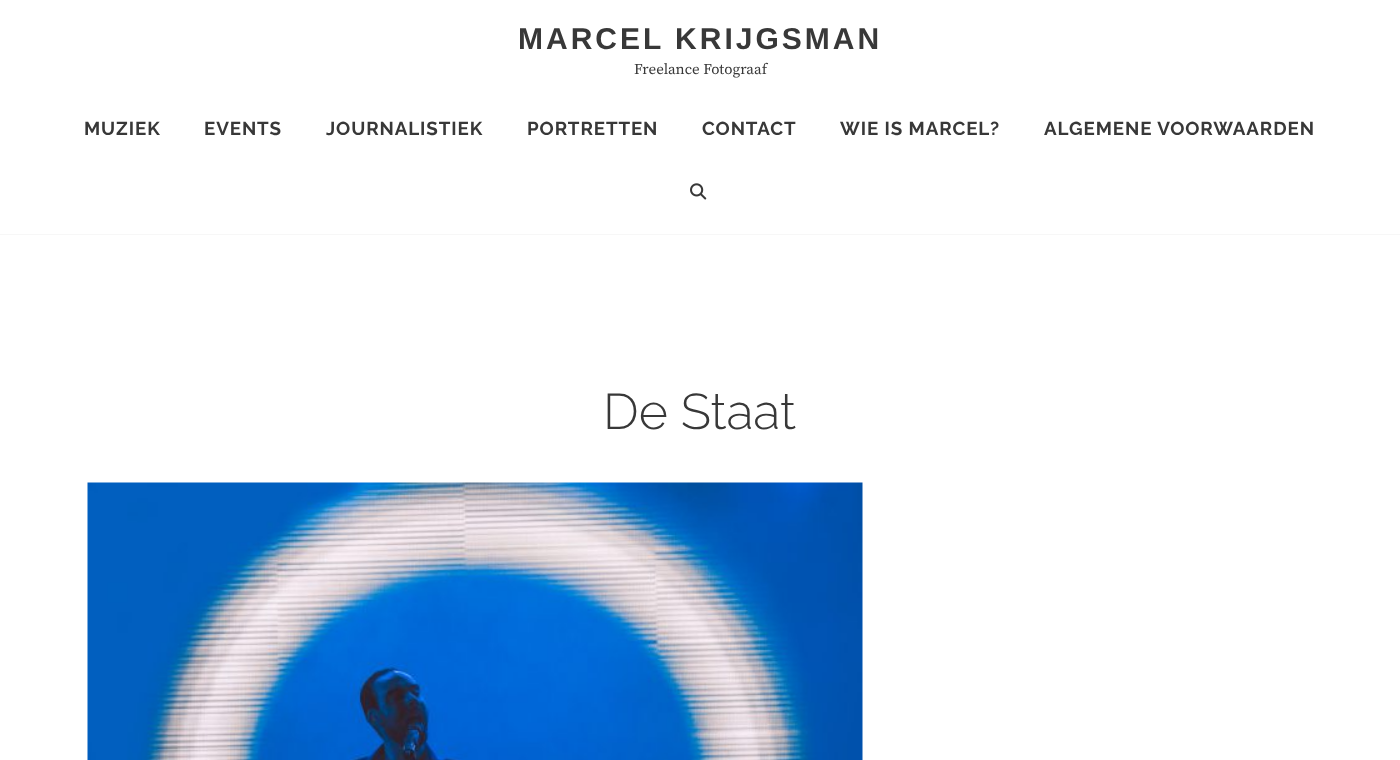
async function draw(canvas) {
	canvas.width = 1400;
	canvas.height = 760;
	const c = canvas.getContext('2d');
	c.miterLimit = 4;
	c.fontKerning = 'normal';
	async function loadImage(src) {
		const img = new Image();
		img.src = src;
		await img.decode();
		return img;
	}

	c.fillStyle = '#fff';
	c.fillRect(0, 0, 1400, 760);
	c.fillStyle = '#f7f7f7';
	c.fillRect(0, 234, 1400, 1);
	c.letterSpacing = '3px';
	c.font = 'bold 30px Liberation Sans';
	c.fillStyle = '#383838';
	c.fillText('MARCEL KRIJGSMAN', 518, 49);
	c.letterSpacing = '0px';
	c.font = '15px Source Serif Pro';
	c.fillText('Freelance Fotograaf', 634, 74);
	c.letterSpacing = '0.9px';
	c.font = 'bold 18.75px Raleway';
	for (const [text, x, y] of [
		['MUZIEK', 84, 135],
		['EVENTS', 204, 135],
		['JOURNALISTIEK', 326, 135],
		['PORTRETTEN', 527, 135],
		['CONTACT', 702, 135],
		['WIE IS MARCEL?', 840, 135],
		['ALGEMENE VOORWAARDEN', 1044, 135],
	]) {
		c.fillText(text, x, y);
	}
	c.drawImage(await loadImage('img1.png'), 690, 183, 17, 17);
	c.letterSpacing = '0px';
	c.font = '300 50px Raleway';
	c.fillText('De Staat', 603, 429);
	c.drawImage(await loadImage('img2.png'), 87, 482, 776, 278);
}

draw(document.querySelector('canvas'));
